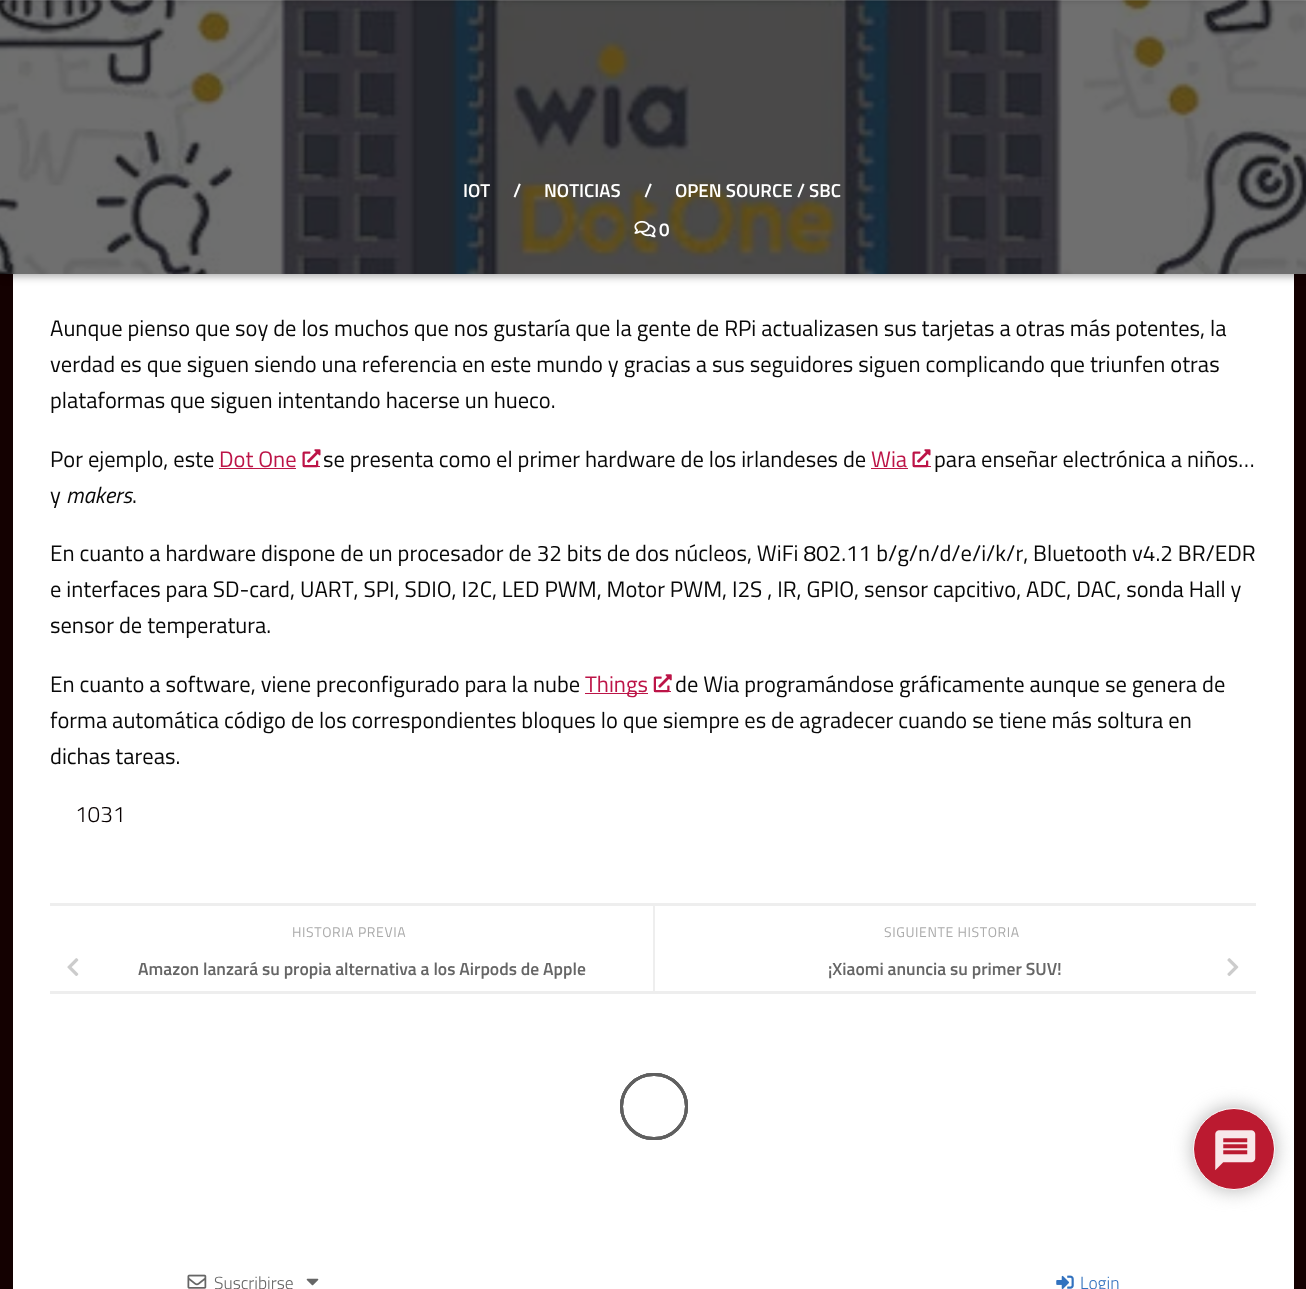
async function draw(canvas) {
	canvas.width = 1306;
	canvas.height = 1289;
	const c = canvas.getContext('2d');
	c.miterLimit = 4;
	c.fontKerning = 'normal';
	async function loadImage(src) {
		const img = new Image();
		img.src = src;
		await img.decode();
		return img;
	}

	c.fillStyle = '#140101';
	c.fillRect(0, 0, 1306, 1289);
	c.fillStyle = '#fff';
	c.fillRect(13, 274, 1281, 1015);
	c.fillStyle = '#0000005c';
	c.filter = 'blur(4.5px)';
	c.beginPath();
	c.rect(-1, -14, 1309, 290);
	c.fill();
	c.filter = 'none';
	c.drawImage(await loadImage('img1.png'), 0, 0, 1306, 274);
	c.fillStyle = '#ffffff26';
	c.fillRect(0, 0, 1306, 1);
	c.fillStyle = '#00000033';
	c.filter = 'blur(3px)';
	c.beginPath();
	c.rect(0, -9, 1306, 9);
	c.fill();
	c.filter = 'none';
	c.font = '600 18.75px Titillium';
	c.fillStyle = '#fff';
	for (const [text, x, y] of [
		['IOT', 463, 197],
		['/', 513, 197],
		['NOTICIAS', 544, 197],
		['/', 644, 197],
		['OPEN SOURCE / SBC', 675, 197],
	]) {
		c.fillText(text, x, y);
	}
	c.drawImage(await loadImage('img2.png'), 634, 220, 22, 18);
	c.fillText('0', 659, 236);
	c.font = '22.5px Titillium';
	c.fillStyle = '#080808';
	for (const [text, x, y] of [
		['Aunque pienso que soy de los muchos que nos gustaría que la gente de RPi actualizasen sus tarjetas a otras más potentes, la', 50, 336],
		['verdad es que siguen siendo una referencia en este mundo y gracias a sus seguidores siguen complicando que triunfen otras', 50, 372],
		['plataformas que siguen intentando hacerse un hueco.', 50, 408],
		['Por ejemplo, este', 50, 467],
	]) {
		c.fillText(text, x, y);
	}
	c.fillStyle = '#bc1447';
	c.fillText('Dot One', 219, 467);
	c.fillRect(219, 468, 77, 1);
	c.fillRect(303, 466, 17, 1);
	c.drawImage(await loadImage('img3.png'), 302, 449, 19, 19);
	c.fillStyle = '#080808';
	c.fillText('se presenta como el primer hardware de los irlandeses de', 323, 467);
	c.fillStyle = '#bc1447';
	c.fillText('Wia', 871, 467);
	c.fillRect(871, 468, 37, 1);
	c.fillRect(913, 466, 18, 1);
	c.drawImage(await loadImage('img4.png'), 912, 449, 19, 19);
	c.fillStyle = '#080808';
	c.fillText('para enseñar electrónica a niños…', 934, 467);
	c.fillText('y', 50, 503);
	c.font = 'italic 22.5px Titillium';
	c.fillText('makers', 66, 503);
	c.font = '22.5px Titillium';
	for (const [text, x, y] of [
		['.', 132, 503],
		['En cuanto a hardware dispone de un procesador de 32 bits de dos núcleos, WiFi 802.11 b/g/n/d/e/i/k/r, Bluetooth v4.2 BR/EDR', 50, 561],
		['e interfaces para SD-card, UART, SPI, SDIO, I2C, LED PWM, Motor PWM, I2S , IR, GPIO, sensor capcitivo, ADC, DAC, sonda Hall y', 50, 597],
		['sensor de temperatura.', 50, 633],
		['En cuanto a software, viene preconfigurado para la nube', 50, 692],
	]) {
		c.fillText(text, x, y);
	}
	c.fillStyle = '#bc1447';
	c.fillRect(585, 693, 63, 1);
	c.fillText('Things', 585, 692);
	c.fillRect(654, 691, 17, 1);
	c.drawImage(await loadImage('img5.png'), 653, 674, 19, 19);
	c.fillStyle = '#080808';
	for (const [text, x, y] of [
		['de Wia programándose gráficamente aunque se genera de', 675, 692],
		['forma automática código de los correspondientes bloques lo que siempre es de agradecer cuando se tiene más soltura en', 50, 728],
		['dichas tareas.', 50, 764],
	]) {
		c.fillText(text, x, y);
	}
	c.font = '300 22.5px Titillium';
	c.fillStyle = '#080000';
	c.fillText('1031', 75, 822);
	c.fillStyle = '#eee';
	c.fillRect(50, 903, 1206, 3);
	c.fillRect(50, 991, 1206, 3);
	c.letterSpacing = '0.6px';
	c.font = '14px Titillium';
	c.fillStyle = '#aaa';
	c.fillText('HISTORIA PREVIA', 292, 937);
	c.drawImage(await loadImage('img6.png'), 67, 958, 12, 18);
	c.letterSpacing = '0px';
	c.font = '600 17.6px Titillium';
	c.fillStyle = '#666';
	c.fillText('Amazon lanzará su propia alternativa a los Airpods de Apple', 138, 975);
	c.fillStyle = '#eee';
	c.fillRect(653, 905, 2, 86);
	c.letterSpacing = '0.6px';
	c.font = '14px Titillium';
	c.fillStyle = '#aaa';
	c.fillText('SIGUIENTE HISTORIA', 884, 937);
	c.letterSpacing = '0px';
	c.font = '600 17.6px Titillium';
	c.fillStyle = '#666';
	c.fillText('¡Xiaomi anuncia su primer SUV!', 828, 975);
	c.drawImage(await loadImage('img7.png'), 1227, 958, 12, 18);
	c.beginPath();
	c.roundRect(621.5, 1074.5, 65, 64, 32);
	c.strokeStyle = '#5f5f5f';
	c.lineWidth = 3;
	c.stroke();
	c.beginPath();
	c.roundRect(621.5, 1074.5, 65, 64, 32);
	c.stroke();
	c.beginPath();
	c.roundRect(621.5, 1074.5, 65, 64, 32);
	c.stroke();
	c.drawImage(await loadImage('img8.png'), 187, 1274, 20, 15);
	c.font = '300 17.5px Titillium';
	c.fillText('Suscribirse', 214, 1289);
	c.drawImage(await loadImage('img9.png'), 306, 1278, 13, 8);
	c.drawImage(await loadImage('img10.png'), 1056, 1275, 18, 14);
	c.fillStyle = '#3272bf';
	c.fillText('Login', 1080, 1289);
	c.fillStyle = '#b3b3b3';
	c.filter = 'blur(9.5px)';
	c.beginPath();
	c.roundRect(1193, 1108, 82, 82, 41);
	c.fill();
	c.filter = 'none';
	c.fillStyle = '#bb1a30';
	c.beginPath();
	c.arc(1234, 1149, 40.5, 0, 2 * Math.PI);
	c.fill();
	c.strokeStyle = '#fff';
	c.lineWidth = 1;
	c.stroke();
	c.drawImage(await loadImage('img11.png'), 1215, 1130, 41, 41);
}

draw(document.querySelector('canvas'));
